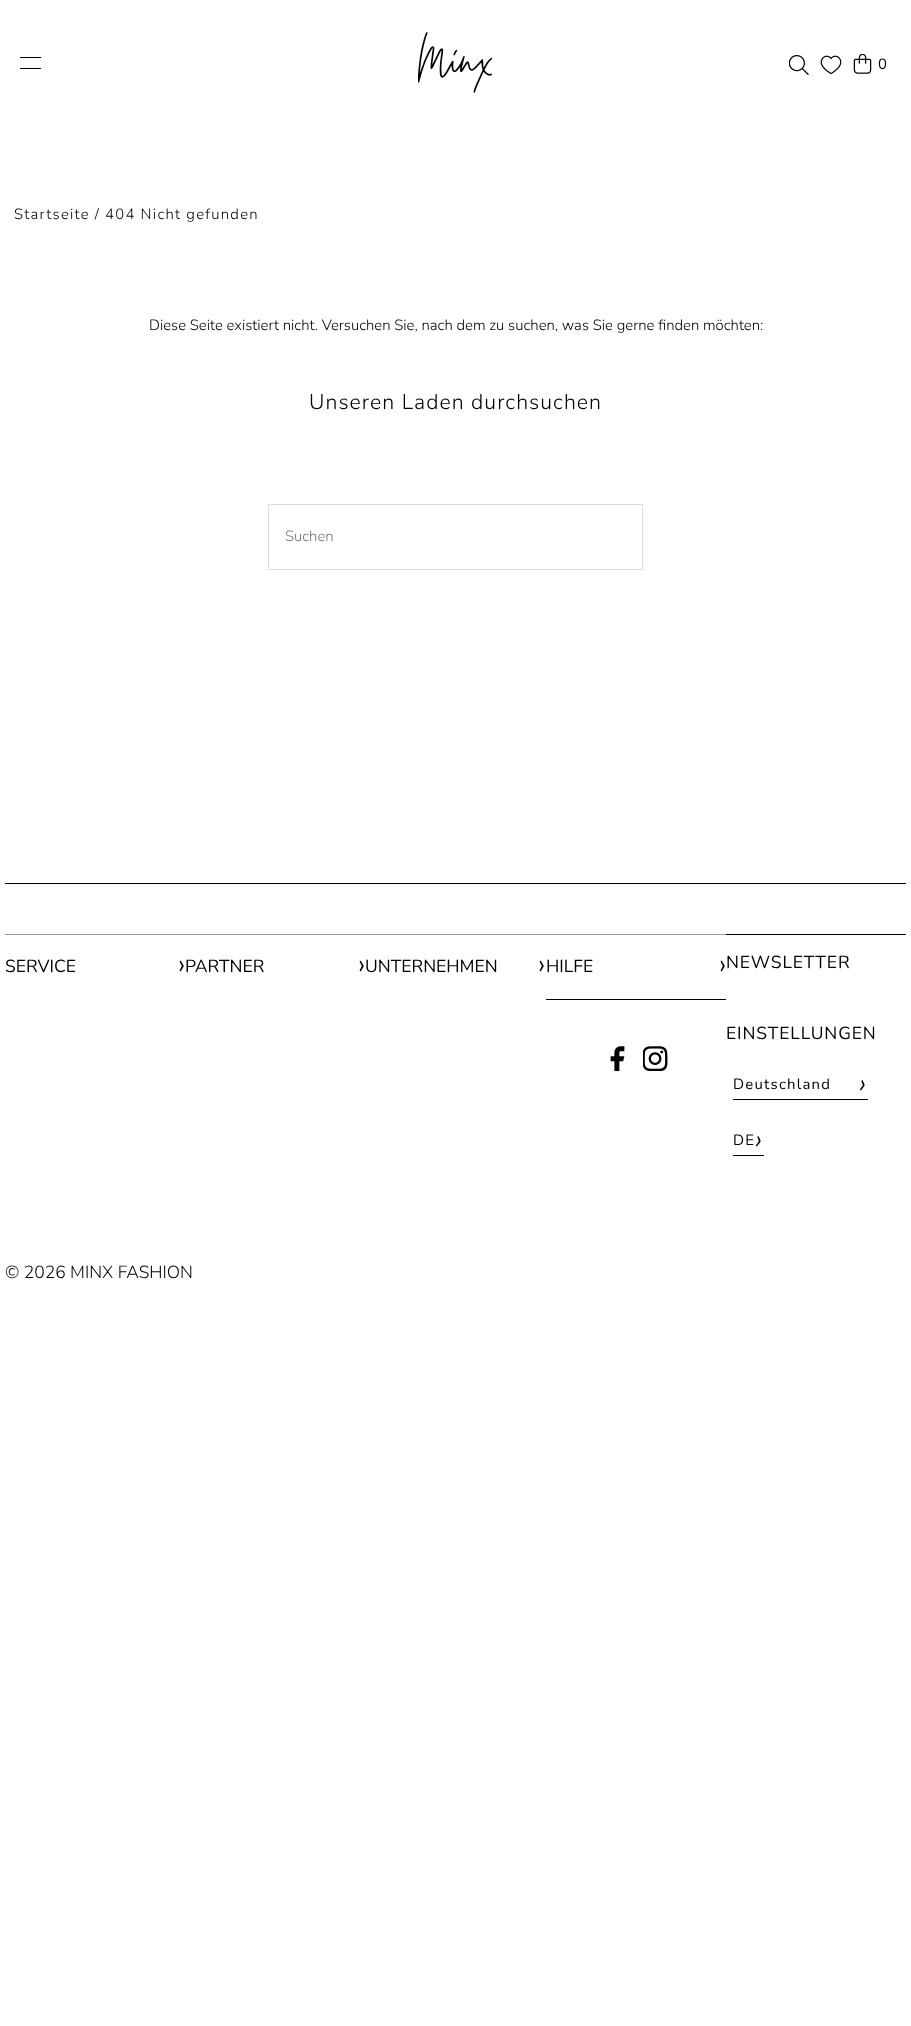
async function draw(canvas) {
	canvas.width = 911;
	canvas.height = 2026;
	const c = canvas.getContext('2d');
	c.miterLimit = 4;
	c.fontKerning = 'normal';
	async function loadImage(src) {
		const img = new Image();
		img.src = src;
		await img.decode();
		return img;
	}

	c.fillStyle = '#fff';
	c.fillRect(0, 0, 911, 2026);
	c.fillStyle = '#000';
	c.fillRect(20, 68, 21, 1);
	c.fillRect(20, 57, 21, 1);
	c.drawImage(await loadImage('img1.png'), 418, 32, 75, 61);
	c.drawImage(await loadImage('img2.png'), 789, 55, 20, 20);
	c.drawImage(await loadImage('img3.png'), 820, 55, 22, 19);
	c.drawImage(await loadImage('img4.png'), 853, 54, 19, 20);
	c.letterSpacing = '1.25px';
	c.font = '200 14.9px Nunito';
	c.fillText('0', 878, 69);
	c.font = '300 14.9px Nunito';
	c.fillText('Startseite / 404 Nicht gefunden', 14, 219);
	c.letterSpacing = '0px';
	c.fillText('Diese Seite existiert nicht. Versuchen Sie, nach dem zu suchen, was Sie gerne finden möchten:', 149, 330);
	c.letterSpacing = '1.05px';
	c.font = '300 21.25px Nunito';
	c.fillText('Unseren Laden durchsuchen', 309, 409);
	c.strokeStyle = '#ddd';
	c.strokeRect(268.5, 504.5, 374, 65);
	c.letterSpacing = '0px';
	c.font = '300 14.9px Nunito';
	c.fillStyle = '#757575';
	c.fillText('Suchen', 285, 541);
	c.fillStyle = '#000';
	c.fillRect(5, 883, 901, 1);
	c.fillStyle = '#999';
	c.fillRect(5, 934, 721, 1);
	c.font = '200 17.5px Nunito';
	c.fillStyle = '#000';
	c.fillText('SERVICE', 5, 972);
	c.font = '300 30px Nunito';
	c.fillText('›', 178, 974);
	c.font = '200 17.5px Nunito';
	c.fillText('PARTNER', 185, 972);
	c.font = '300 30px Nunito';
	c.fillText('›', 358, 974);
	c.font = '200 17.5px Nunito';
	c.fillText('UNTERNEHMEN', 365, 972);
	c.font = '300 30px Nunito';
	c.fillText('›', 538, 974);
	c.fillRect(546, 999, 180, 1);
	c.font = '200 17.5px Nunito';
	c.fillText('HILFE', 546, 972);
	c.font = '300 30px Nunito';
	c.fillText('›', 719, 974);
	c.drawImage(await loadImage('img5.png'), 610, 1046, 15, 25);
	c.drawImage(await loadImage('img6.png'), 643, 1046, 25, 25);
	c.fillRect(726, 934, 180, 1);
	c.letterSpacing = '0.9px';
	c.font = '200 17.5px Nunito';
	c.fillText('NEWSLETTER', 726, 968);
	c.fillText('EINSTELLUNGEN', 726, 1039);
	c.fillRect(733, 1099, 135, 1);
	c.letterSpacing = '1.25px';
	c.font = '200 14.9px Nunito';
	c.fillText('Deutschland', 733, 1089);
	c.font = 'italic 300 29px Nunito';
	c.fillText('›', 859, 1093);
	c.fillRect(733, 1155, 31, 1);
	c.font = '200 14.9px Nunito';
	c.fillText('DE', 733, 1145);
	c.font = 'italic 300 29px Nunito';
	c.fillText('›', 755, 1149);
	c.letterSpacing = '0px';
	c.font = '300 17.5px Nunito';
	c.fillText('© 2026 MINX FASHION', 5, 1278);
}

draw(document.querySelector('canvas'));
